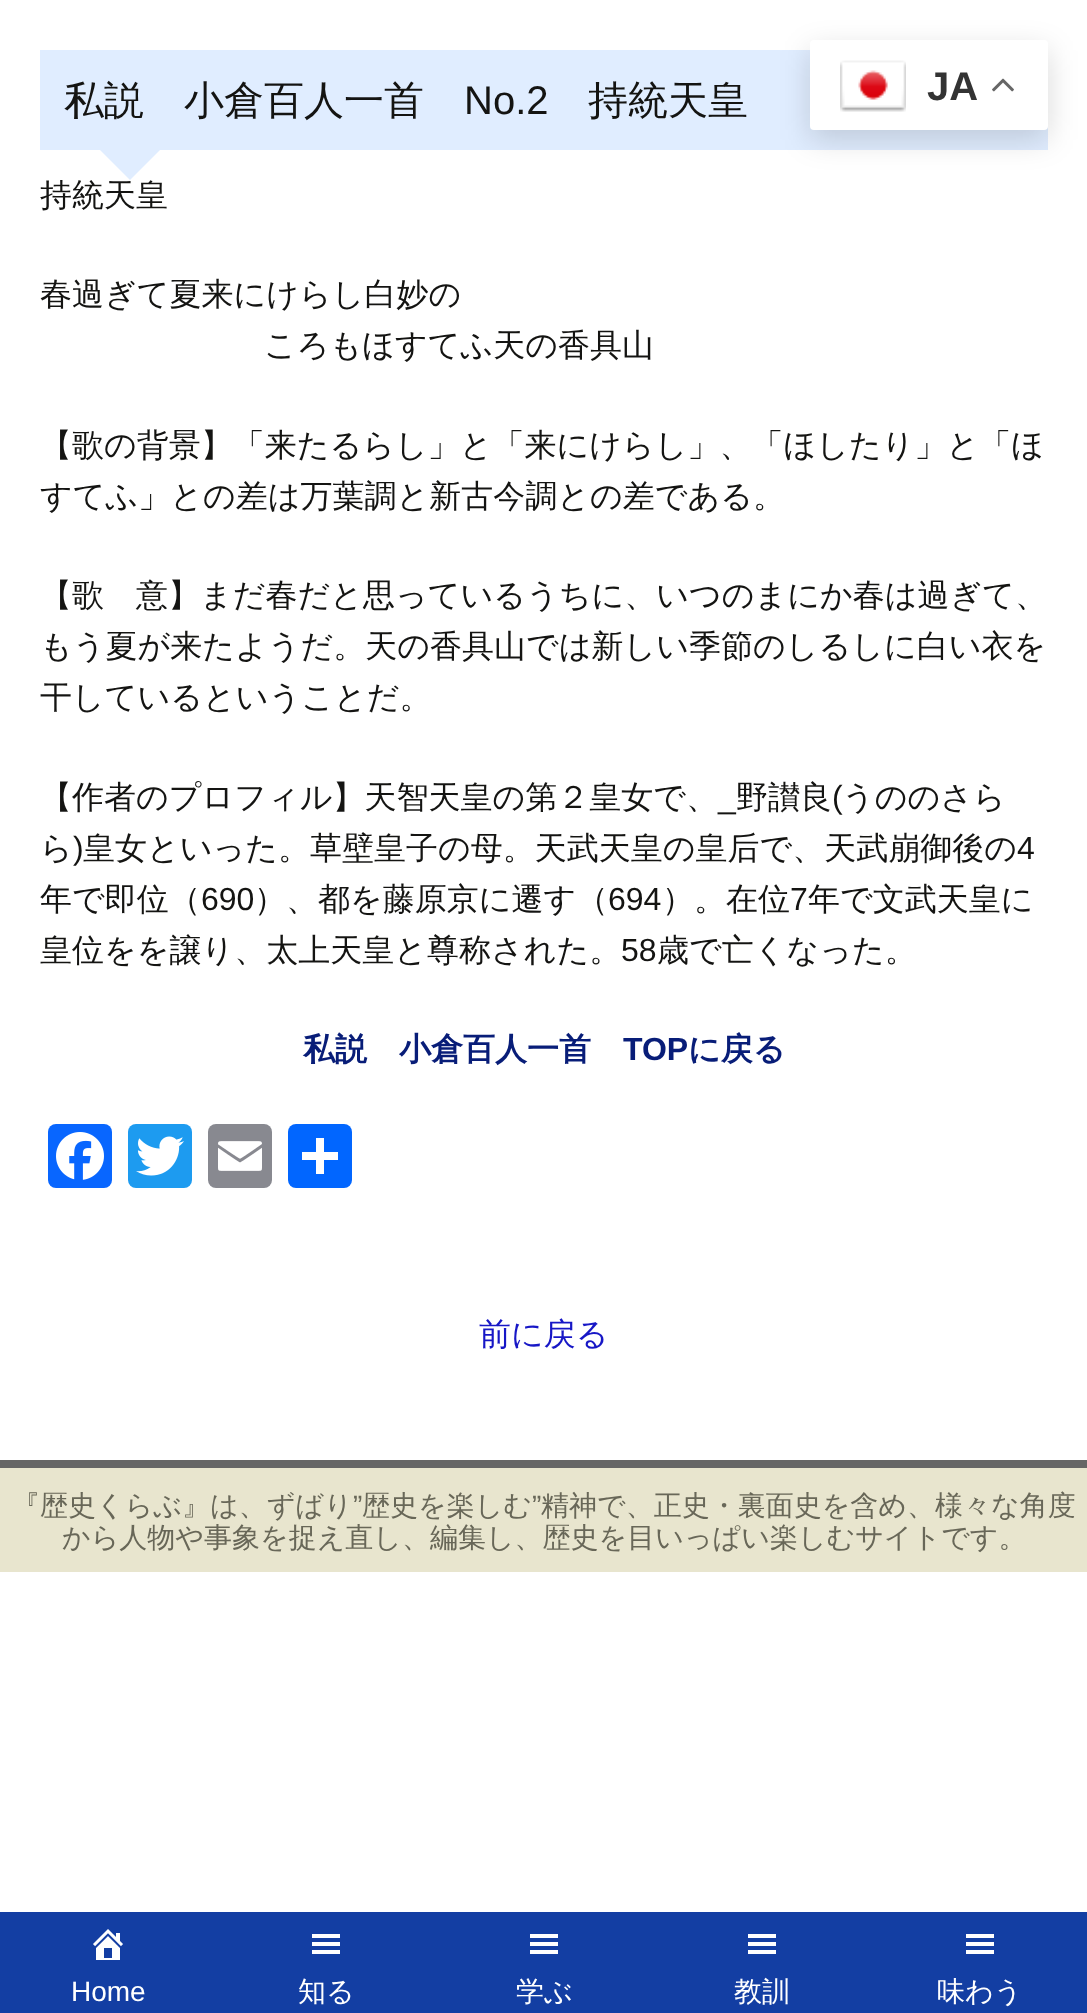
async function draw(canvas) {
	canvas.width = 1087;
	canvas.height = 2013;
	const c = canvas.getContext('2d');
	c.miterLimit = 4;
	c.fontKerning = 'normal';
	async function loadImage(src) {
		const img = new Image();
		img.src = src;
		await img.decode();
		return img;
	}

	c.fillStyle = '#fff';
	c.fillRect(0, 0, 1087, 2013);
	c.fillStyle = '#e0edff';
	c.fillRect(40, 50, 1008, 100);
	c.fillStyle = '#00000026';
	c.filter = 'blur(15px)';
	c.beginPath();
	c.roundRect(810, 50, 238, 90, 4);
	c.fill();
	c.filter = 'none';
	c.fillStyle = '#fff';
	c.beginPath();
	c.roundRect(810, 40, 238, 90, 4);
	c.fill();
	c.drawImage(await loadImage('img1.png'), 840, 60, 66, 52);
	c.font = 'bold 40px Liberation Sans';
	c.fillStyle = '#333';
	c.fillText('JA', 927, 100);
	c.drawImage(await loadImage('img2.png'), 992, 78, 22, 14);
	c.font = '500 40px WenQuanYi Zen Hei';
	c.fillStyle = '#141412';
	c.fillText('私説　小倉百人一首', 64, 114);
	c.font = '40px Liberation Sans';
	c.fillText('No.2', 464, 114);
	c.font = '500 40px WenQuanYi Zen Hei';
	c.fillText('持統天皇', 588, 114);
	c.font = '500 32px WenQuanYi Zen Hei';
	c.fillText('持統天皇', 40, 206);
	c.fillStyle = '#e0edff';
	c.beginPath();
	c.moveTo(100, 150);
	c.lineTo(160, 150);
	c.lineTo(130, 180);
	c.closePath();
	c.fill();
	c.fillStyle = '#141412';
	for (const [text, x, y] of [
		['春過ぎて夏来にけらし白妙の', 40, 305],
		['ころもほすてふ天の香具山', 264, 356],
		['【歌の背景】「来たるらし」と「来にけらし」、「ほしたり」と「ほ', 40, 456],
		['すてふ」との差は万葉調と新古今調との差である。', 40, 507],
		['【歌　意】まだ春だと思っているうちに、いつのまにか春は過ぎて、', 40, 606],
		['もう夏が来たようだ。天の香具山では新しい季節のしるしに白い衣を', 40, 657],
		['干しているということだ。', 40, 708],
		['【作者のプロフィル】天智天皇の第２皇女で、', 40, 808],
	]) {
		c.fillText(text, x, y);
	}
	c.font = '32px Liberation Sans';
	c.fillText('_', 718, 808);
	c.font = '500 32px WenQuanYi Zen Hei';
	c.fillText('野讃良', 736, 808);
	c.font = '32px Liberation Sans';
	c.fillText('(', 832, 808);
	c.font = '500 32px WenQuanYi Zen Hei';
	c.fillText('うののさら', 842, 808);
	c.fillText('ら', 40, 859);
	c.font = '32px Liberation Sans';
	c.fillText(')', 73, 859);
	c.font = '500 32px WenQuanYi Zen Hei';
	c.fillText('皇女といった。草壁皇子の母。天武天皇の皇后で、天武崩御後の', 83, 859);
	c.font = '32px Liberation Sans';
	c.fillText('4', 1017, 859);
	c.font = '500 32px WenQuanYi Zen Hei';
	c.fillText('年で即位（', 40, 910);
	c.font = '32px Liberation Sans';
	c.fillText('690', 201, 910);
	c.font = '500 32px WenQuanYi Zen Hei';
	c.fillText('）、都を藤原京に遷す（', 254, 910);
	c.font = '32px Liberation Sans';
	c.fillText('694', 608, 910);
	c.font = '500 32px WenQuanYi Zen Hei';
	c.fillText('）。在位', 662, 910);
	c.font = '32px Liberation Sans';
	c.fillText('7', 790, 910);
	c.font = '500 32px WenQuanYi Zen Hei';
	c.fillText('年で文武天皇に', 808, 910);
	c.fillText('皇位をを譲り、太上天皇と尊称された。', 40, 961);
	c.font = '32px Liberation Sans';
	c.fillText('58', 621, 961);
	c.font = '500 32px WenQuanYi Zen Hei';
	c.fillText('歳で亡くなった。', 657, 961);
	c.font = 'bold 32px WenQuanYi Zen Hei';
	c.fillStyle = '#081d78';
	c.fillText('私説　小倉百人一首', 303, 1060);
	c.font = 'bold 32px Liberation Sans';
	c.fillText('TOP', 623, 1060);
	c.font = 'bold 32px WenQuanYi Zen Hei';
	c.fillText('に戻る', 688, 1060);
	c.fillStyle = '#0866ff';
	c.beginPath();
	c.roundRect(48, 1124, 64, 64, 8);
	c.fill();
	c.drawImage(await loadImage('img3.png'), 56, 1132, 48, 48);
	c.fillStyle = '#1d9bf0';
	c.beginPath();
	c.roundRect(128, 1124, 64, 64, 8);
	c.fill();
	c.drawImage(await loadImage('img4.png'), 136, 1136, 48, 40);
	c.fillStyle = '#888990';
	c.beginPath();
	c.roundRect(208, 1124, 64, 64, 8);
	c.fill();
	c.drawImage(await loadImage('img5.png'), 218, 1141, 44, 30);
	c.fillStyle = '#0166ff';
	c.beginPath();
	c.roundRect(288, 1124, 64, 64, 8);
	c.fill();
	c.fillStyle = '#fff';
	c.fillRect(316, 1138, 8, 36);
	c.fillRect(302, 1152, 36, 8);
	c.font = '500 32px WenQuanYi Zen Hei';
	c.fillStyle = '#1717c6';
	c.fillText('前に戻る', 479, 1345);
	c.fillStyle = '#e8e5ce';
	c.fillRect(0, 1468, 1087, 104);
	c.fillStyle = '#666';
	c.fillRect(0, 1460, 1087, 8);
	c.font = '500 28px WenQuanYi Zen Hei';
	c.fillStyle = '#686758';
	c.fillText('『歴史くらぶ』は、ずばり', 12, 1515);
	c.font = '28px Liberation Sans';
	c.fillText('”', 353, 1515);
	c.font = '500 28px WenQuanYi Zen Hei';
	c.fillText('歴史を楽しむ', 362, 1515);
	c.font = '28px Liberation Sans';
	c.fillText('”', 532, 1515);
	c.font = '500 28px WenQuanYi Zen Hei';
	c.fillText('精神で、正史・裏面史を含め、様々な角度', 541, 1515);
	c.fillText('から人物や事象を捉え直し、編集し、歴史を目いっぱい楽しむサイトです。', 62, 1547);
	c.fillStyle = '#133ea3';
	c.fillRect(0, 1912, 1087, 101);
	c.drawImage(await loadImage('img6.png'), 93, 1929, 30, 31);
	c.font = '28px Liberation Sans';
	c.fillStyle = '#fff';
	c.fillText('Home', 71, 2001);
	c.drawImage(await loadImage('img7.png'), 312, 1934, 28, 20);
	c.font = '500 28px WenQuanYi Zen Hei';
	c.fillText('知る', 298, 2001);
	c.drawImage(await loadImage('img7.png'), 530, 1934, 28, 20);
	c.fillText('学ぶ', 516, 2001);
	c.drawImage(await loadImage('img7.png'), 748, 1934, 28, 20);
	c.fillText('教訓', 734, 2001);
	c.drawImage(await loadImage('img7.png'), 966, 1934, 28, 20);
	c.fillText('味わう', 937, 2001);
}

draw(document.querySelector('canvas'));
